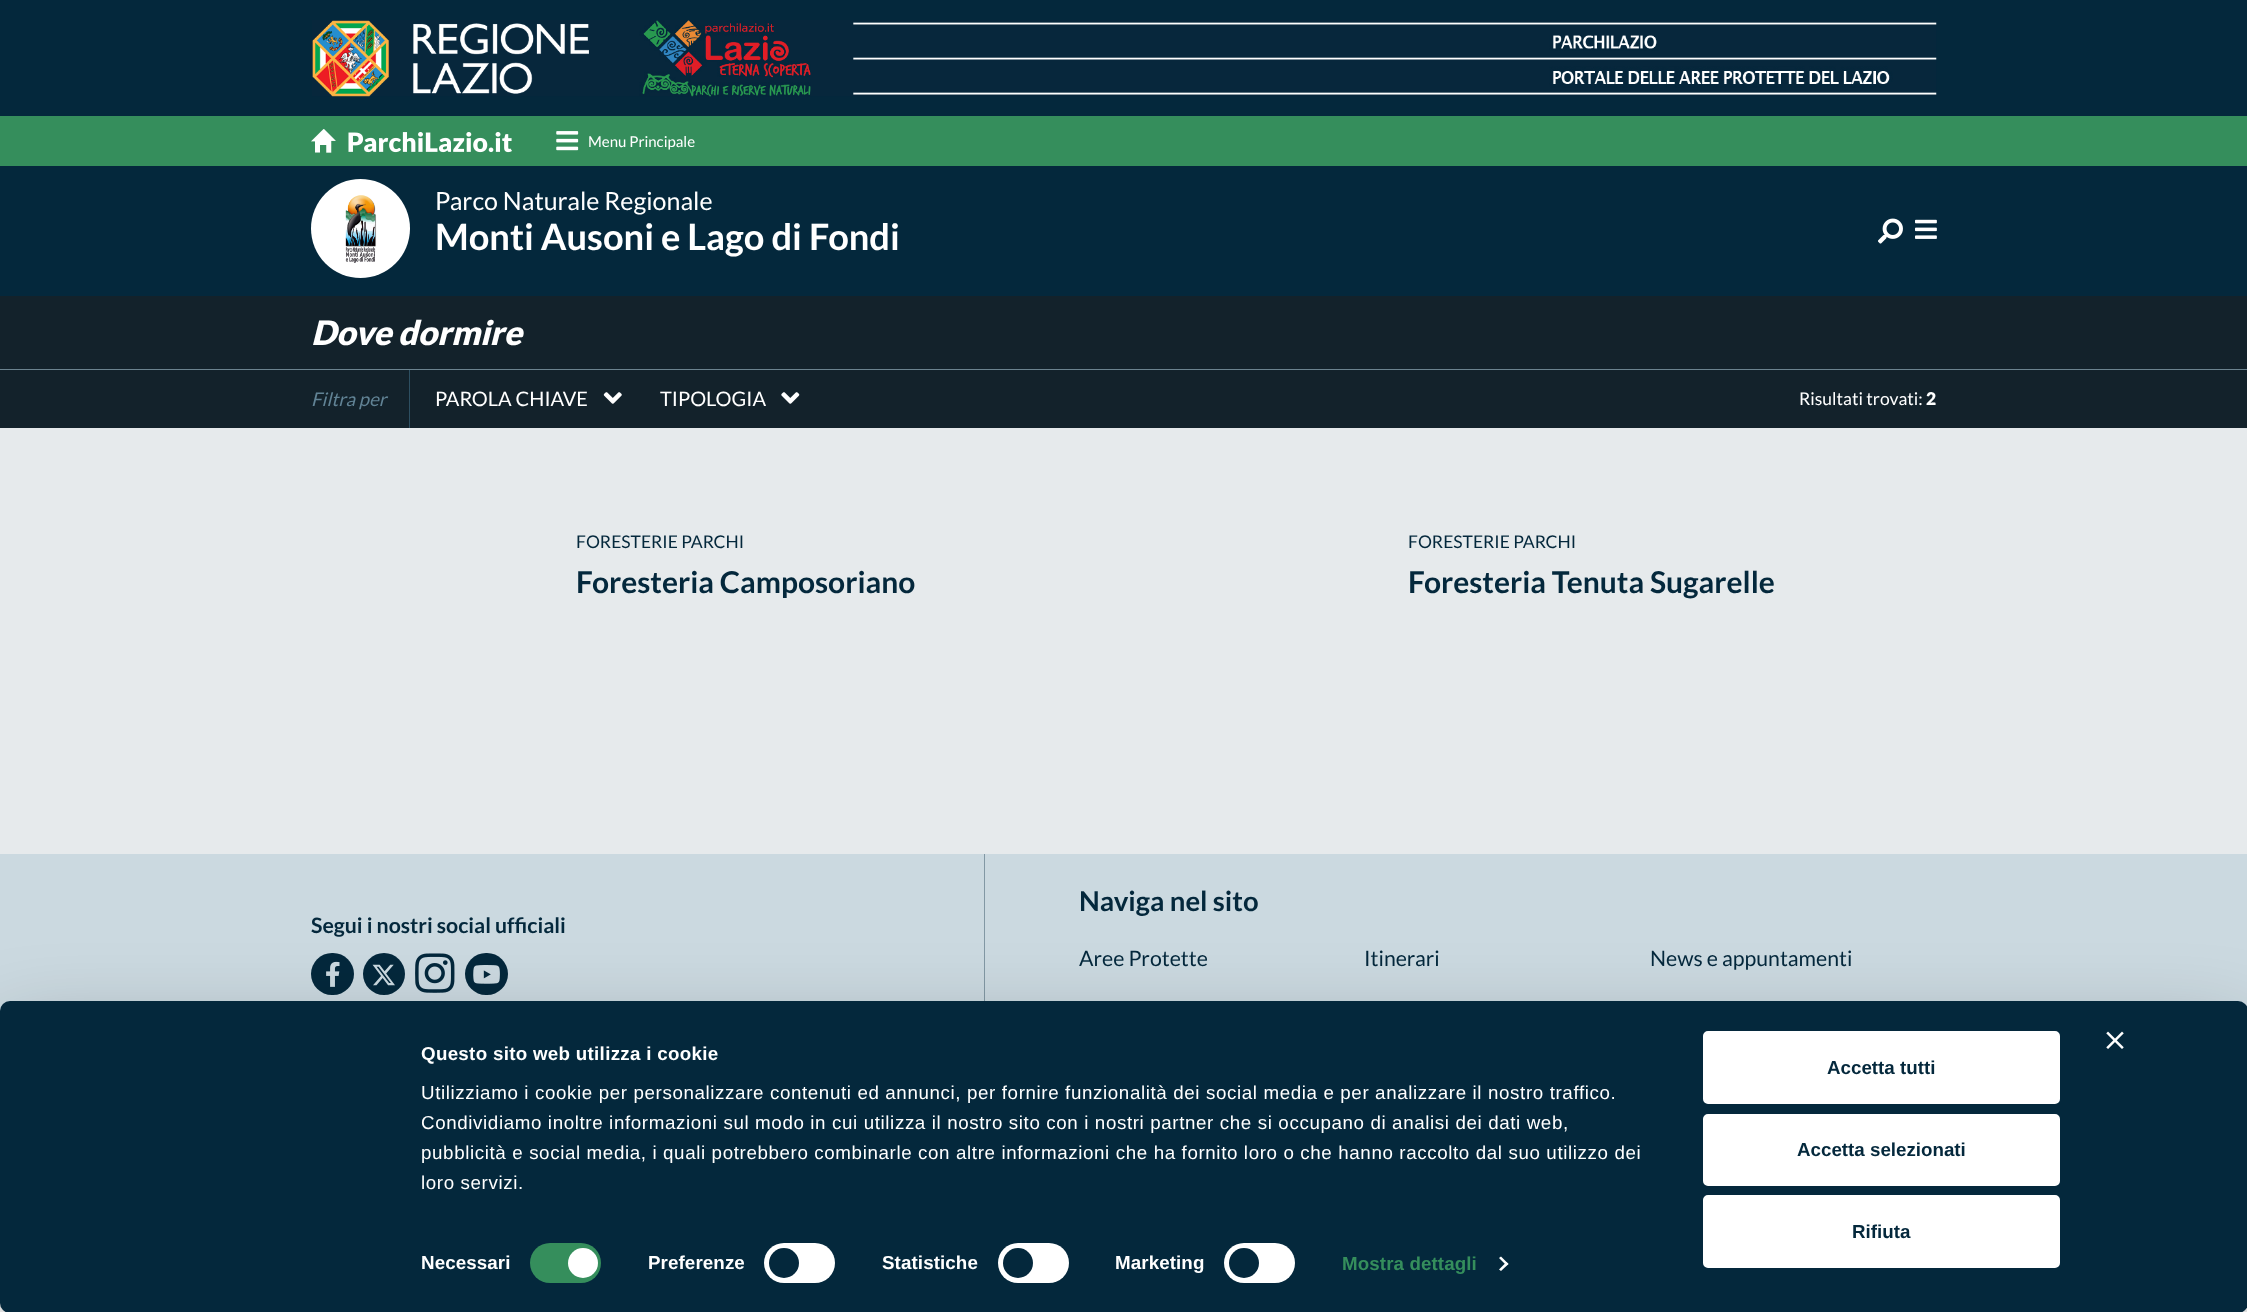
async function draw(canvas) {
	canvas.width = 2247;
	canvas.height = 1312;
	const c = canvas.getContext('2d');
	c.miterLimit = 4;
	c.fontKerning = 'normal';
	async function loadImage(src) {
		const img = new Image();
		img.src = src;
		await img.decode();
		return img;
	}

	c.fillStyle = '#fff';
	c.fillRect(0, 0, 2247, 1312);
	c.fillStyle = '#04283c';
	c.fillRect(0, 0, 2247, 116);
	c.drawImage(await loadImage('img1.png'), 312, 20, 1625, 77);
	c.fillStyle = '#358e5c';
	c.fillRect(0, 116, 2247, 50);
	c.drawImage(await loadImage('img2.png'), 311, 129, 201, 24);
	c.drawImage(await loadImage('img3.png'), 556, 131, 23, 20);
	c.font = '15px Lato';
	c.fillStyle = '#fff';
	c.fillText('Menu Principale', 588, 147);
	c.fillStyle = '#04283c';
	c.fillRect(0, 166, 2247, 130);
	c.fillStyle = '#fff';
	c.beginPath();
	c.arc(360.5, 228.5, 49.5, 0, 2 * Math.PI);
	c.fill();
	c.drawImage(await loadImage('img4.png'), 345, 195, 32, 68);
	c.font = '25px Lato';
	c.fillText('Parco Naturale Regionale', 435, 210);
	c.font = 'bold 36.25px Lato';
	c.fillText('Monti Ausoni e Lago di Fondi', 435, 250);
	c.drawImage(await loadImage('img5.png'), 1878, 218, 25, 26);
	c.drawImage(await loadImage('img6.png'), 1915, 219, 22, 20);
	c.fillStyle = '#13222b';
	c.fillRect(0, 296, 2247, 73);
	c.font = 'italic 900 33.75px Lato';
	c.fillStyle = '#fff';
	c.fillText('Dove dormire', 311, 345);
	for (const [x, y, w, h, color] of [
		[0, 370, 2247, 58, '#13222b'],
		[0, 369, 2247, 1, '#6b838f'],
		[409, 370, 1, 58, '#2d4f61'],
	]) {
		c.fillStyle = color;
		c.fillRect(x, y, w, h);
	}
	c.font = 'italic 18.75px Lato';
	c.fillStyle = '#618395';
	c.fillText('Filtra per', 311, 406);
	c.font = '20px Lato';
	c.fillStyle = '#fff';
	c.fillText('PAROLA CHIAVE', 435, 406);
	c.drawImage(await loadImage('img7.png'), 603, 392, 19, 12);
	c.fillText('TIPOLOGIA', 660, 406);
	c.drawImage(await loadImage('img8.png'), 781, 392, 19, 12);
	c.font = '17.5px Lato';
	c.fillText('Risultati trovati:', 1799, 405);
	c.font = '900 17.5px Lato';
	c.fillText('2', 1926, 405);
	c.fillStyle = '#e6eaec';
	c.fillRect(0, 428, 2247, 426);
	c.font = '17.5px Lato';
	c.fillStyle = '#04283c';
	c.fillText('FORESTERIE PARCHI', 576, 548);
	c.font = 'bold 30px Lato';
	c.fillText('Foresteria Camposoriano', 576, 593);
	c.font = '17.5px Lato';
	c.fillText('FORESTERIE PARCHI', 1408, 548);
	c.font = 'bold 30px Lato';
	c.fillText('Foresteria Tenuta Sugarelle', 1408, 593);
	c.fillStyle = '#cbd9e0';
	c.fillRect(0, 854, 2247, 157);
	c.fillStyle = '#8298a4';
	c.fillRect(984, 854, 1, 147);
	c.font = 'bold 21.25px Lato';
	c.fillStyle = '#04283c';
	c.fillText('Segui i nostri social ufficiali', 311, 933);
	c.beginPath();
	c.roundRect(311, 953, 43, 42, 21);
	c.fill();
	c.drawImage(await loadImage('img9.png'), 326, 961, 14, 26);
	c.beginPath();
	c.arc(384, 974, 21, 0, 2 * Math.PI);
	c.fill();
	c.drawImage(await loadImage('img10.png'), 372, 964, 23, 22);
	c.drawImage(await loadImage('img11.png'), 415, 953, 40, 40);
	c.beginPath();
	c.roundRect(465, 953, 43, 42, 21);
	c.fill();
	c.drawImage(await loadImage('img12.png'), 473, 965, 27, 19);
	c.font = 'bold 27.5px Lato';
	c.fillText('Naviga nel sito', 1079, 911);
	c.font = '21.25px Lato';
	for (const [text, x, y] of [
		['Aree Protette', 1079, 966],
		['Itinerari', 1364, 966],
		['News e appuntamenti', 1650, 966],
	]) {
		c.fillText(text, x, y);
	}
	c.fillStyle = '#0000004d';
	c.filter = 'blur(44px)';
	c.beginPath();
	c.roundRect(0, 1039, 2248, 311, 10);
	c.fill();
	c.filter = 'none';
	c.fillStyle = '#04283c';
	c.beginPath();
	c.roundRect(0, 1001, 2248, 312, 10);
	c.fill();
	c.drawImage(await loadImage('img13.png'), 2106, 1031, 18, 18);
	c.letterSpacing = '0.3px';
	c.font = 'bold 18.75px Liberation Sans';
	c.fillStyle = '#fff';
	c.fillText('Questo sito web utilizza i cookie', 421, 1060);
	c.letterSpacing = '0.62px';
	c.font = '18.75px Liberation Sans';
	for (const [text, x, y] of [
		['Utilizziamo i cookie per personalizzare contenuti ed annunci, per fornire funzionalità dei social media e per analizzare il nostro traffico.', 421, 1099],
		['Condividiamo inoltre informazioni sul modo in cui utilizza il nostro sito con i nostri partner che si occupano di analisi dei dati web,', 421, 1129],
		['pubblicità e social media, i quali potrebbero combinarle con altre informazioni che ha fornito loro o che hanno raccolto dal suo utilizzo dei', 421, 1159],
		['loro servizi.', 421, 1189],
	]) {
		c.fillText(text, x, y);
	}
	c.letterSpacing = '0.1px';
	c.font = 'bold 18.75px Liberation Sans';
	c.fillText('Necessari', 421, 1269);
	c.fillStyle = '#358e5c';
	c.beginPath();
	c.roundRect(530, 1243, 71, 40, 20);
	c.fill();
	c.fillStyle = '#fff';
	c.beginPath();
	c.arc(583, 1263, 15, 0, 2 * Math.PI);
	c.fill();
	c.fillText('Preferenze', 648, 1269);
	c.beginPath();
	c.roundRect(764, 1243, 71, 40, 20);
	c.fill();
	c.fillStyle = '#04283c';
	c.beginPath();
	c.arc(784, 1263, 15, 0, 2 * Math.PI);
	c.fill();
	c.fillStyle = '#fff';
	c.fillText('Statistiche', 882, 1269);
	c.beginPath();
	c.roundRect(998, 1243, 71, 40, 20);
	c.fill();
	c.fillStyle = '#04283c';
	c.beginPath();
	c.arc(1018, 1263, 15, 0, 2 * Math.PI);
	c.fill();
	c.fillStyle = '#fff';
	c.fillText('Marketing', 1115, 1269);
	c.beginPath();
	c.roundRect(1224, 1243, 71, 40, 20);
	c.fill();
	c.fillStyle = '#04283c';
	c.beginPath();
	c.arc(1244, 1263, 15, 0, 2 * Math.PI);
	c.fill();
	c.fillStyle = '#358e5c';
	c.fillText('Mostra dettagli', 1342, 1270);
	c.fillStyle = '#fff';
	c.beginPath();
	c.moveTo(1501, 1256.5);
	c.lineTo(1508.5, 1264);
	c.lineTo(1506.5, 1265.5);
	c.lineTo(1499, 1258);
	c.closePath();
	c.fill();
	c.beginPath();
	c.moveTo(1506.5, 1262);
	c.lineTo(1508.5, 1264);
	c.lineTo(1501, 1271);
	c.lineTo(1499, 1269.5);
	c.closePath();
	c.fill();
	c.beginPath();
	c.roundRect(1704.5, 1032.5, 354, 70, 3.5);
	c.fill();
	c.strokeStyle = '#fff';
	c.lineWidth = 3;
	c.stroke();
	c.letterSpacing = '0px';
	c.fillStyle = '#04283c';
	c.fillText('Accetta tutti', 1827, 1074);
	c.fillStyle = '#fff';
	c.beginPath();
	c.roundRect(1704.5, 1115.5, 354, 69, 3.5);
	c.fill();
	c.stroke();
	c.fillStyle = '#04283c';
	c.fillText('Accetta selezionati', 1797, 1156);
	c.fillStyle = '#fff';
	c.beginPath();
	c.roundRect(1704.5, 1196.5, 354, 70, 3.5);
	c.fill();
	c.stroke();
	c.fillStyle = '#04283c';
	c.fillText('Rifiuta', 1852, 1238);
}

draw(document.querySelector('canvas'));
